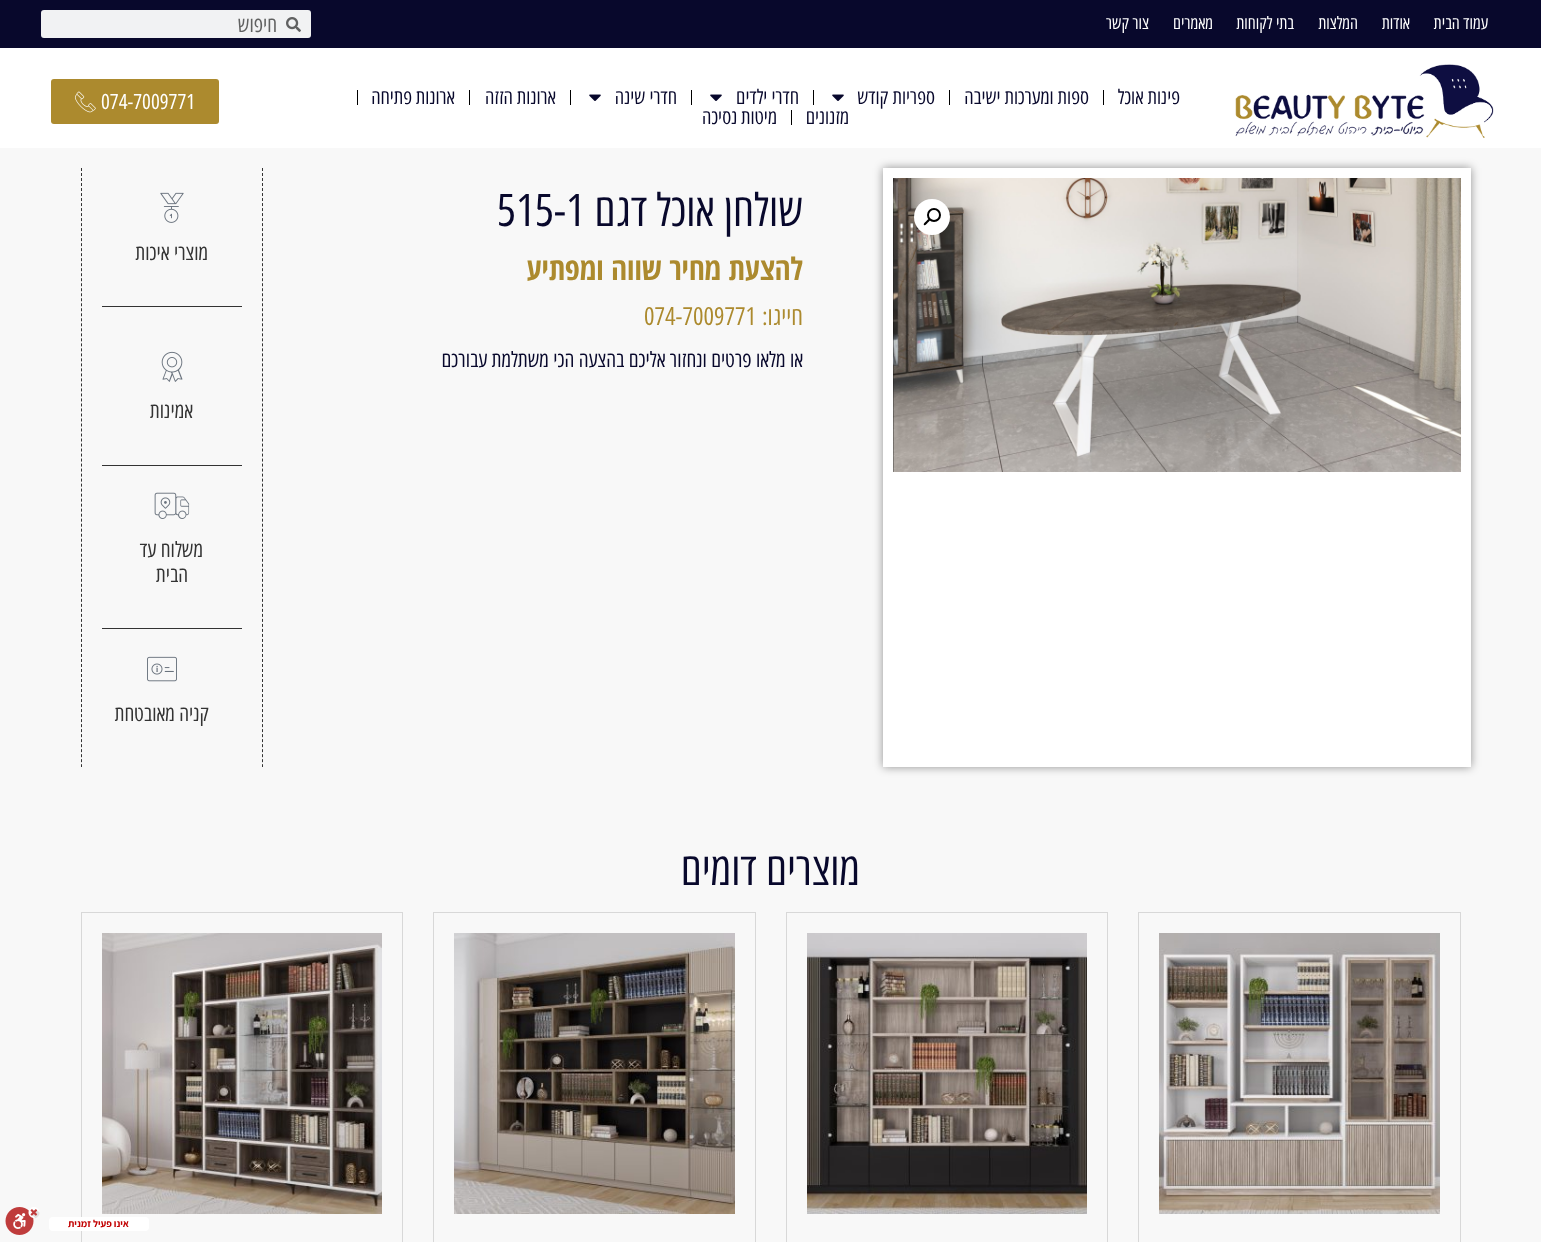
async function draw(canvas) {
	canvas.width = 1541;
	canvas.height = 1242;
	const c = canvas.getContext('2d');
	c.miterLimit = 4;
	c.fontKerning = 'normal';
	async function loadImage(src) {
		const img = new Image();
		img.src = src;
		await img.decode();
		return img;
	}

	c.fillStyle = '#fff';
	c.fillRect(0, 0, 1541, 1242);
	c.fillStyle = '#08082c';
	c.fillRect(0, 0, 1541, 48);
	c.direction = 'rtl';
	c.font = '17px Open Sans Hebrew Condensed';
	c.fillStyle = '#fff';
	for (const [text, x, y] of [
		['עמוד הבית', 1488, 29],
		['אודות', 1410, 29],
		['המלצות', 1358, 29],
		['בתי לקוחות', 1294, 29],
		['מאמרים', 1213, 29],
		['צור קשר', 1149, 29],
	]) {
		c.fillText(text, x, y);
	}
	c.fillStyle = '#f1f2f3';
	c.beginPath();
	c.roundRect(41, 10, 270, 28, 3);
	c.fill();
	c.drawImage(await loadImage('img1.png'), 286, 17, 15, 15);
	c.font = '21px Open Sans Hebrew Condensed';
	c.fillStyle = '#606161';
	c.fillText('חיפוש', 277, 32);
	c.drawImage(await loadImage('img2.png'), 1235, 64, 259, 74);
	c.font = '20px Open Sans Hebrew Condensed';
	c.fillStyle = '#08082c';
	c.fillText('פינות אוכל', 1180, 104);
	c.fillStyle = '#000';
	c.fillRect(1103, 90, 1, 15);
	c.fillStyle = '#08082c';
	c.fillText('ספות ומערכות ישיבה', 1089, 104);
	c.fillStyle = '#000';
	c.fillRect(949, 90, 1, 15);
	c.fillStyle = '#08082c';
	c.fillText('ספריות קודש', 935, 104);
	c.drawImage(await loadImage('img3.png'), 832, 94, 12, 7);
	c.fillStyle = '#000';
	c.fillRect(813, 90, 1, 15);
	c.fillStyle = '#08082c';
	c.fillText('חדרי ילדים', 799, 104);
	c.drawImage(await loadImage('img3.png'), 710, 94, 12, 7);
	c.fillStyle = '#000';
	c.fillRect(691, 90, 1, 15);
	c.fillStyle = '#08082c';
	c.fillText('חדרי שינה', 677, 104);
	c.drawImage(await loadImage('img3.png'), 589, 94, 12, 7);
	c.fillStyle = '#000';
	c.fillRect(570, 90, 1, 15);
	c.fillStyle = '#08082c';
	c.fillText('ארונות הזזה', 556, 104);
	c.fillStyle = '#000';
	c.fillRect(469, 90, 1, 15);
	c.fillStyle = '#08082c';
	c.fillText('ארונות פתיחה', 455, 104);
	c.fillStyle = '#000';
	c.fillRect(357, 90, 1, 15);
	c.fillStyle = '#08082c';
	c.fillText('מזנונים', 849, 124);
	c.fillStyle = '#000';
	c.fillRect(791, 110, 1, 15);
	c.fillStyle = '#08082c';
	c.fillText('מיטות נסיכה', 777, 124);
	c.fillStyle = '#ac8a2e';
	c.beginPath();
	c.roundRect(51, 79, 168, 45, 3);
	c.fill();
	c.direction = 'ltr';
	c.font = '21px Open Sans Hebrew Condensed';
	c.fillStyle = '#fff';
	c.fillText('074-7009771', 101, 109);
	c.drawImage(await loadImage('img4.png'), 74, 91, 22, 22);
	c.fillStyle = '#f8f8f8';
	c.fillRect(0, 148, 1541, 1094);
	c.fillStyle = '#0000006b';
	c.filter = 'blur(5px)';
	c.beginPath();
	c.rect(883, 168, 588, 599);
	c.fill();
	c.filter = 'none';
	c.fillStyle = '#fff';
	c.fillRect(883, 168, 588, 599);
	c.drawImage(await loadImage('img5.png'), 893, 178, 568, 294);
	c.beginPath();
	c.arc(932, 217, 18, 0, 2 * Math.PI);
	c.fill();
	c.beginPath();
	c.arc(934, 215, 6, 0, 2 * Math.PI);
	c.strokeStyle = '#000';
	c.lineWidth = 2;
	c.stroke();
	c.fillStyle = '#000';
	c.beginPath();
	c.moveTo(929.5, 219.5);
	c.bezierCurveTo(931, 220.5, 928, 222, 927.5, 223);
	c.bezierCurveTo(927, 223.5, 925, 226, 924, 225);
	c.bezierCurveTo(923, 224, 925.5, 222, 926, 221.5);
	c.bezierCurveTo(927, 221, 928.5, 218, 929.5, 219.5);
	c.closePath();
	c.fill();
	c.direction = 'rtl';
	c.font = '45px Open Sans Hebrew Condensed';
	c.fillStyle = '#08082c';
	c.fillText('שולחן אוכל דגם', 803, 226);
	c.direction = 'ltr';
	c.fillText('515-1', 497, 226);
	c.direction = 'rtl';
	c.font = 'bold 31px Open Sans Hebrew Condensed';
	c.fillStyle = '#ac8a2e';
	c.fillText('להצעת מחיר שווה ומפתיע', 803, 280);
	c.font = '25px Open Sans Hebrew Condensed';
	c.fillText('חייגו:', 803, 325);
	c.direction = 'ltr';
	c.fillText('074-7009771', 644, 325);
	c.direction = 'rtl';
	c.font = '21px Open Sans Hebrew Condensed';
	c.fillStyle = '#08082c';
	c.fillText('או מלאו פרטים ונחזור אליכם בהצעה הכי משתלמת עבורכם', 803, 367);
	c.beginPath();
	c.moveTo(262.5, 168);
	c.lineTo(262.5, 767);
	c.strokeStyle = '#333';
	c.lineWidth = 1;
	c.setLineDash([3, 2.01]);
	c.stroke();
	c.beginPath();
	c.moveTo(81.5, 168);
	c.lineTo(81.5, 767);
	c.stroke();
	c.fillStyle = '#333';
	c.fillRect(102, 306, 140, 1);
	c.drawImage(await loadImage('img6.png'), 160, 192, 24, 31);
	c.fillText('מוצרי איכות', 208, 260);
	c.fillRect(102, 465, 140, 1);
	c.drawImage(await loadImage('img7.png'), 161, 351, 22, 31);
	c.fillText('אמינות', 193, 418);
	c.fillRect(102, 628, 140, 1);
	c.drawImage(await loadImage('img8.png'), 154, 492, 36, 27);
	c.fillText('משלוח עד', 203, 557);
	c.fillText('הבית', 188, 582);
	c.drawImage(await loadImage('img9.png'), 147, 656, 30, 26);
	c.fillText('קניה מאובטחת', 209, 721);
	c.font = '45px Open Sans Hebrew Condensed';
	c.fillStyle = '#08082c';
	c.fillText('מוצרים דומים', 860, 885);
	c.strokeStyle = '#d8d8d8';
	c.setLineDash([]);
	c.strokeRect(1138.5, 912.5, 322, 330);
	c.drawImage(await loadImage('img10.png'), 1159, 933, 281, 281);
	c.strokeRect(786.5, 912.5, 321, 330);
	c.drawImage(await loadImage('img11.png'), 807, 933, 280, 281);
	c.strokeRect(433.5, 912.5, 322, 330);
	c.drawImage(await loadImage('img12.png'), 454, 933, 281, 281);
	c.strokeRect(81.5, 912.5, 321, 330);
	c.drawImage(await loadImage('img13.png'), 102, 933, 280, 281);
	c.fillStyle = '#fff';
	c.beginPath();
	c.roundRect(49, 1217, 100, 14, 4);
	c.fill();
	c.font = 'bold 10px Assistant';
	c.fillStyle = '#c20000';
	c.fillText('אינו פעיל זמנית', 129, 1227);
	c.drawImage(await loadImage('img14.png'), 5, 1207, 35, 28);
}

draw(document.querySelector('canvas'));
